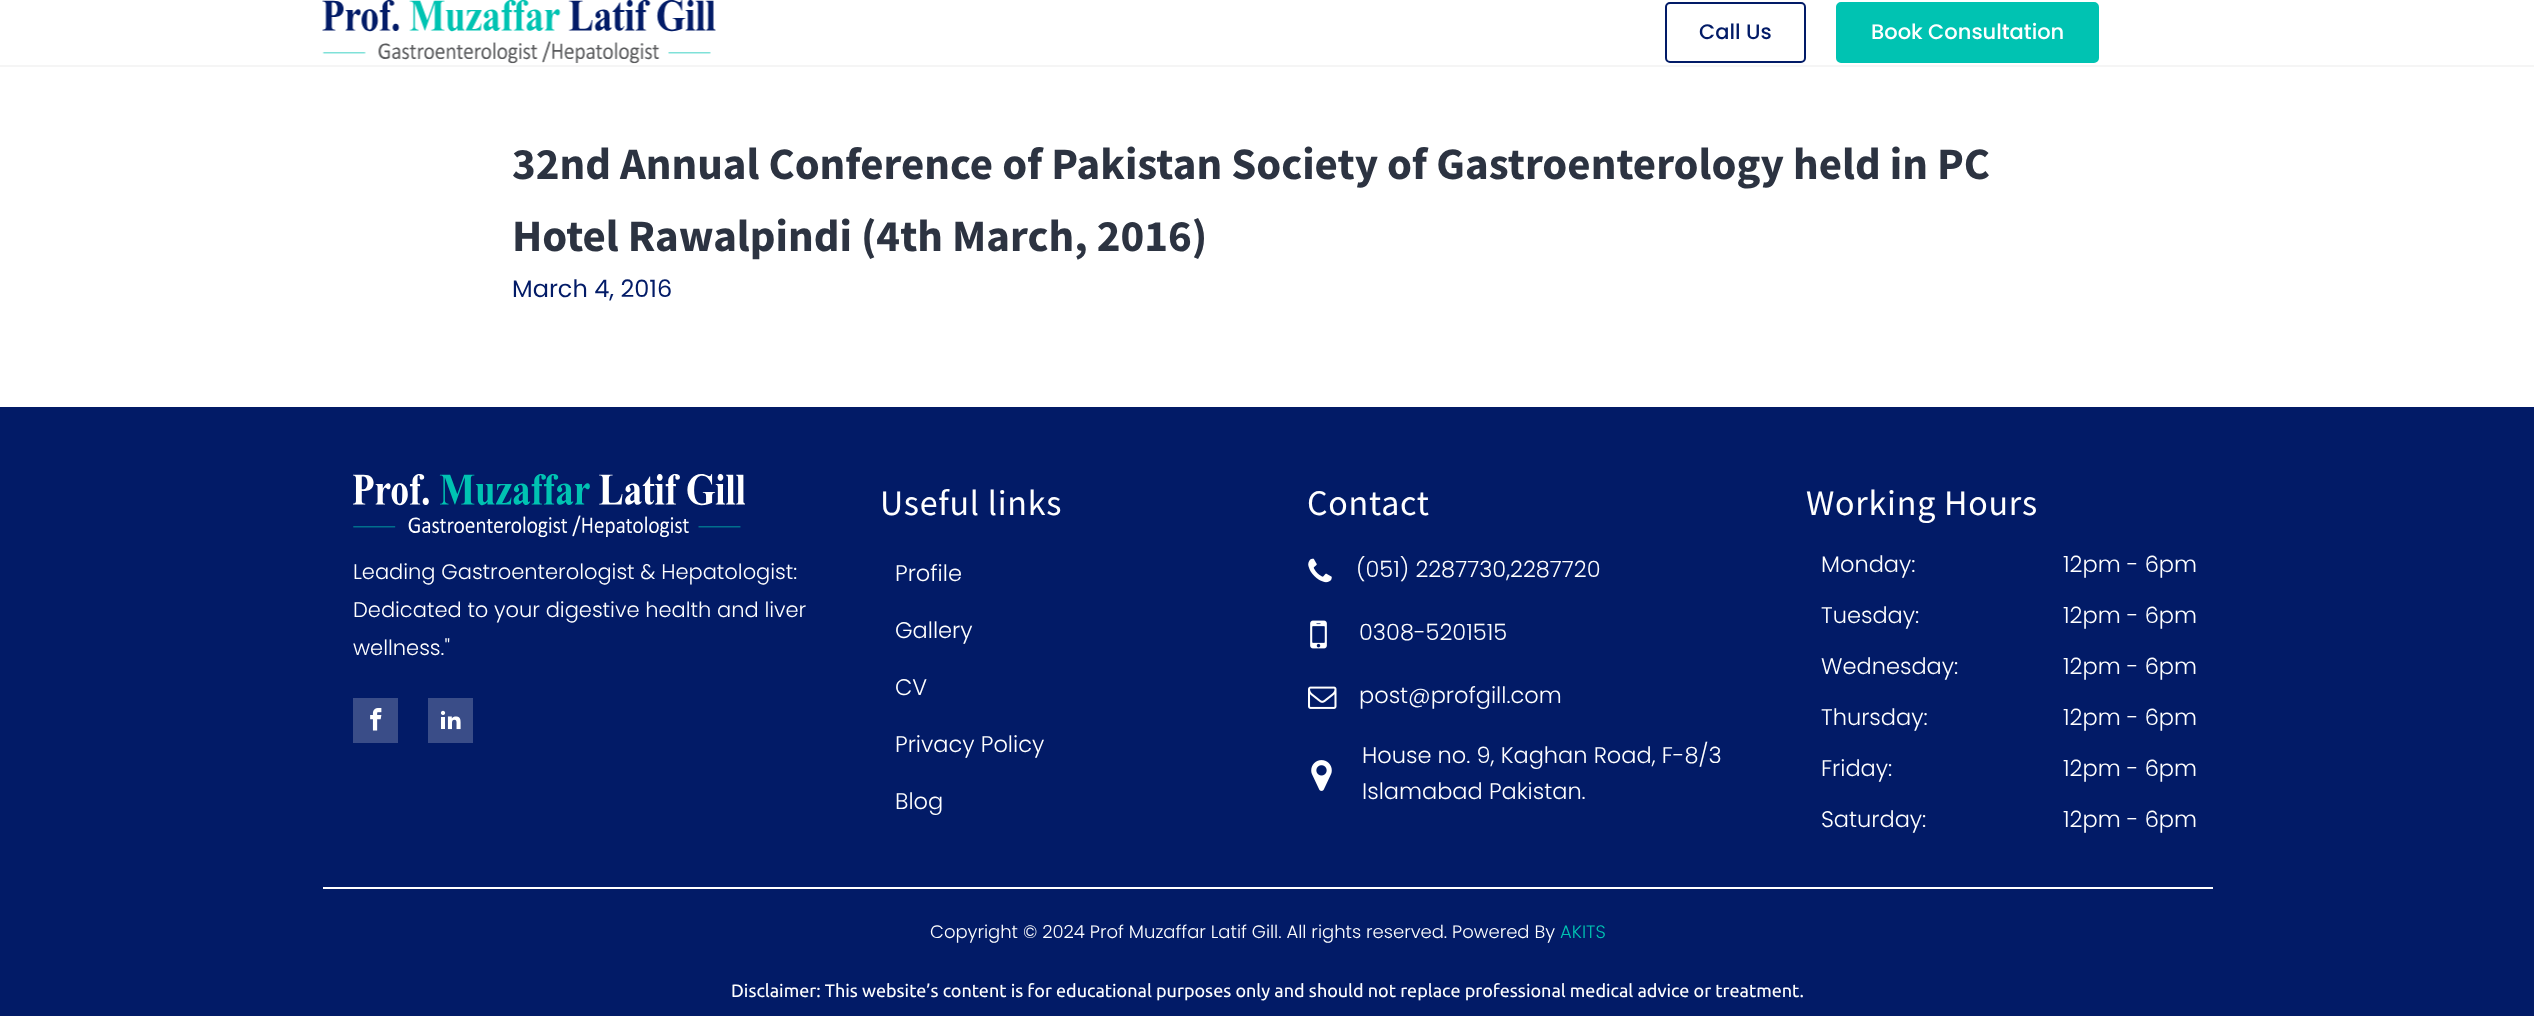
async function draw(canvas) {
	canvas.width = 2534;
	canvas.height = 1016;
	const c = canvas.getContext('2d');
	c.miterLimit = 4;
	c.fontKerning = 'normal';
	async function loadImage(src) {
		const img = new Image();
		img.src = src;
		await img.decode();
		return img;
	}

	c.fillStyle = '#fff';
	c.fillRect(0, 0, 2534, 1016);
	c.fillStyle = '#f5f5f5';
	c.fillRect(0, 65, 2534, 2);
	c.drawImage(await loadImage('img1.png'), 322, 0, 394, 64);
	c.beginPath();
	c.roundRect(1666, 3, 139, 59, 4);
	c.strokeStyle = '#021b67';
	c.lineWidth = 2;
	c.stroke();
	c.font = '500 21px Poppins';
	c.fillStyle = '#021b67';
	c.fillText('Call Us', 1699, 39);
	c.fillStyle = '#00c3b2';
	c.beginPath();
	c.roundRect(1837, 3, 261, 59, 4);
	c.fill();
	c.strokeStyle = '#00c3b2';
	c.stroke();
	c.fillStyle = '#fff';
	c.fillText('Book Consultation', 1871, 39);
	c.font = 'bold 45px Source Sans Pro';
	c.fillStyle = '#2c3341';
	c.fillText('32nd Annual Conference of Pakistan Society of Gastroenterology held in PC', 512, 179);
	c.fillText('Hotel Rawalpindi (4th March, 2016)', 512, 251);
	c.font = '24px Poppins';
	c.fillStyle = '#021b67';
	c.fillText('March 4, 2016', 512, 297);
	c.fillRect(0, 407, 2534, 609);
	c.drawImage(await loadImage('img2.png'), 353, 474, 392, 64);
	c.font = '300 21px Poppins';
	c.fillStyle = '#fff';
	for (const [text, x, y] of [
		['Leading Gastroenterologist & Hepatologist:', 353, 579],
		['Dedicated to your digestive health and liver', 353, 617],
		['wellness."', 353, 655],
	]) {
		c.fillText(text, x, y);
	}
	c.fillStyle = '#3a4d88';
	c.fillRect(353, 698, 45, 45);
	c.drawImage(await loadImage('img3.png'), 370, 708, 12, 23);
	c.fillRect(428, 698, 45, 45);
	c.drawImage(await loadImage('img4.png'), 440, 710, 21, 20);
	c.letterSpacing = '0.75px';
	c.font = '36px Source Sans Pro';
	c.fillStyle = '#fff';
	c.fillText('Useful links', 880, 515);
	c.letterSpacing = '0px';
	c.font = '300 22.5px Poppins';
	for (const [text, x, y] of [
		['Profile', 895, 581],
		['Gallery', 895, 638],
		['CV', 895, 695],
		['Privacy Policy', 895, 752],
		['Blog', 895, 809],
	]) {
		c.fillText(text, x, y);
	}
	c.letterSpacing = '0.75px';
	c.font = '36px Source Sans Pro';
	c.fillText('Contact', 1307, 515);
	c.drawImage(await loadImage('img5.png'), 1308, 558, 24, 25);
	c.letterSpacing = '0px';
	c.font = '300 22.5px Poppins';
	c.fillText('(051) 2287730,2287720', 1356, 577);
	c.drawImage(await loadImage('img6.png'), 1310, 620, 17, 29);
	c.fillText('0308-5201515', 1359, 640);
	c.drawImage(await loadImage('img7.png'), 1308, 686, 29, 23);
	c.fillText('post@profgill.com', 1359, 703);
	c.drawImage(await loadImage('img8.png'), 1311, 760, 21, 31);
	c.fillText('House no. 9, Kaghan Road, F-8/3', 1362, 763);
	c.fillText('Islamabad Pakistan.', 1362, 799);
	c.letterSpacing = '0.75px';
	c.font = '36px Source Sans Pro';
	c.fillText('Working Hours', 1806, 515);
	c.letterSpacing = '0px';
	c.font = '300 22.5px Poppins';
	for (const [text, x, y] of [
		['Monday:', 1821, 572],
		['12pm - 6pm', 2063, 572],
		['Tuesday:', 1821, 623],
		['12pm - 6pm', 2063, 623],
		['Wednesday:', 1821, 674],
		['12pm - 6pm', 2063, 674],
		['Thursday:', 1821, 725],
		['12pm - 6pm', 2063, 725],
		['Friday:', 1821, 776],
		['12pm - 6pm', 2063, 776],
		['Saturday:', 1821, 827],
		['12pm - 6pm', 2063, 827],
	]) {
		c.fillText(text, x, y);
	}
	c.fillRect(323, 887, 1890, 2);
	c.font = '300 18px Poppins';
	c.fillText('Copyright © 2024 Prof Muzaffar Latif Gill. All rights reserved. Powered By', 930, 938);
	c.fillStyle = '#00c3b2';
	c.fillText('AKITS', 1560, 938);
	c.font = '18px Ubuntu';
	c.fillStyle = '#fff';
	c.fillText('Disclaimer: This website’s content is for educational purposes only and should not replace professional medical advice or treatment.', 731, 997);
}

draw(document.querySelector('canvas'));
